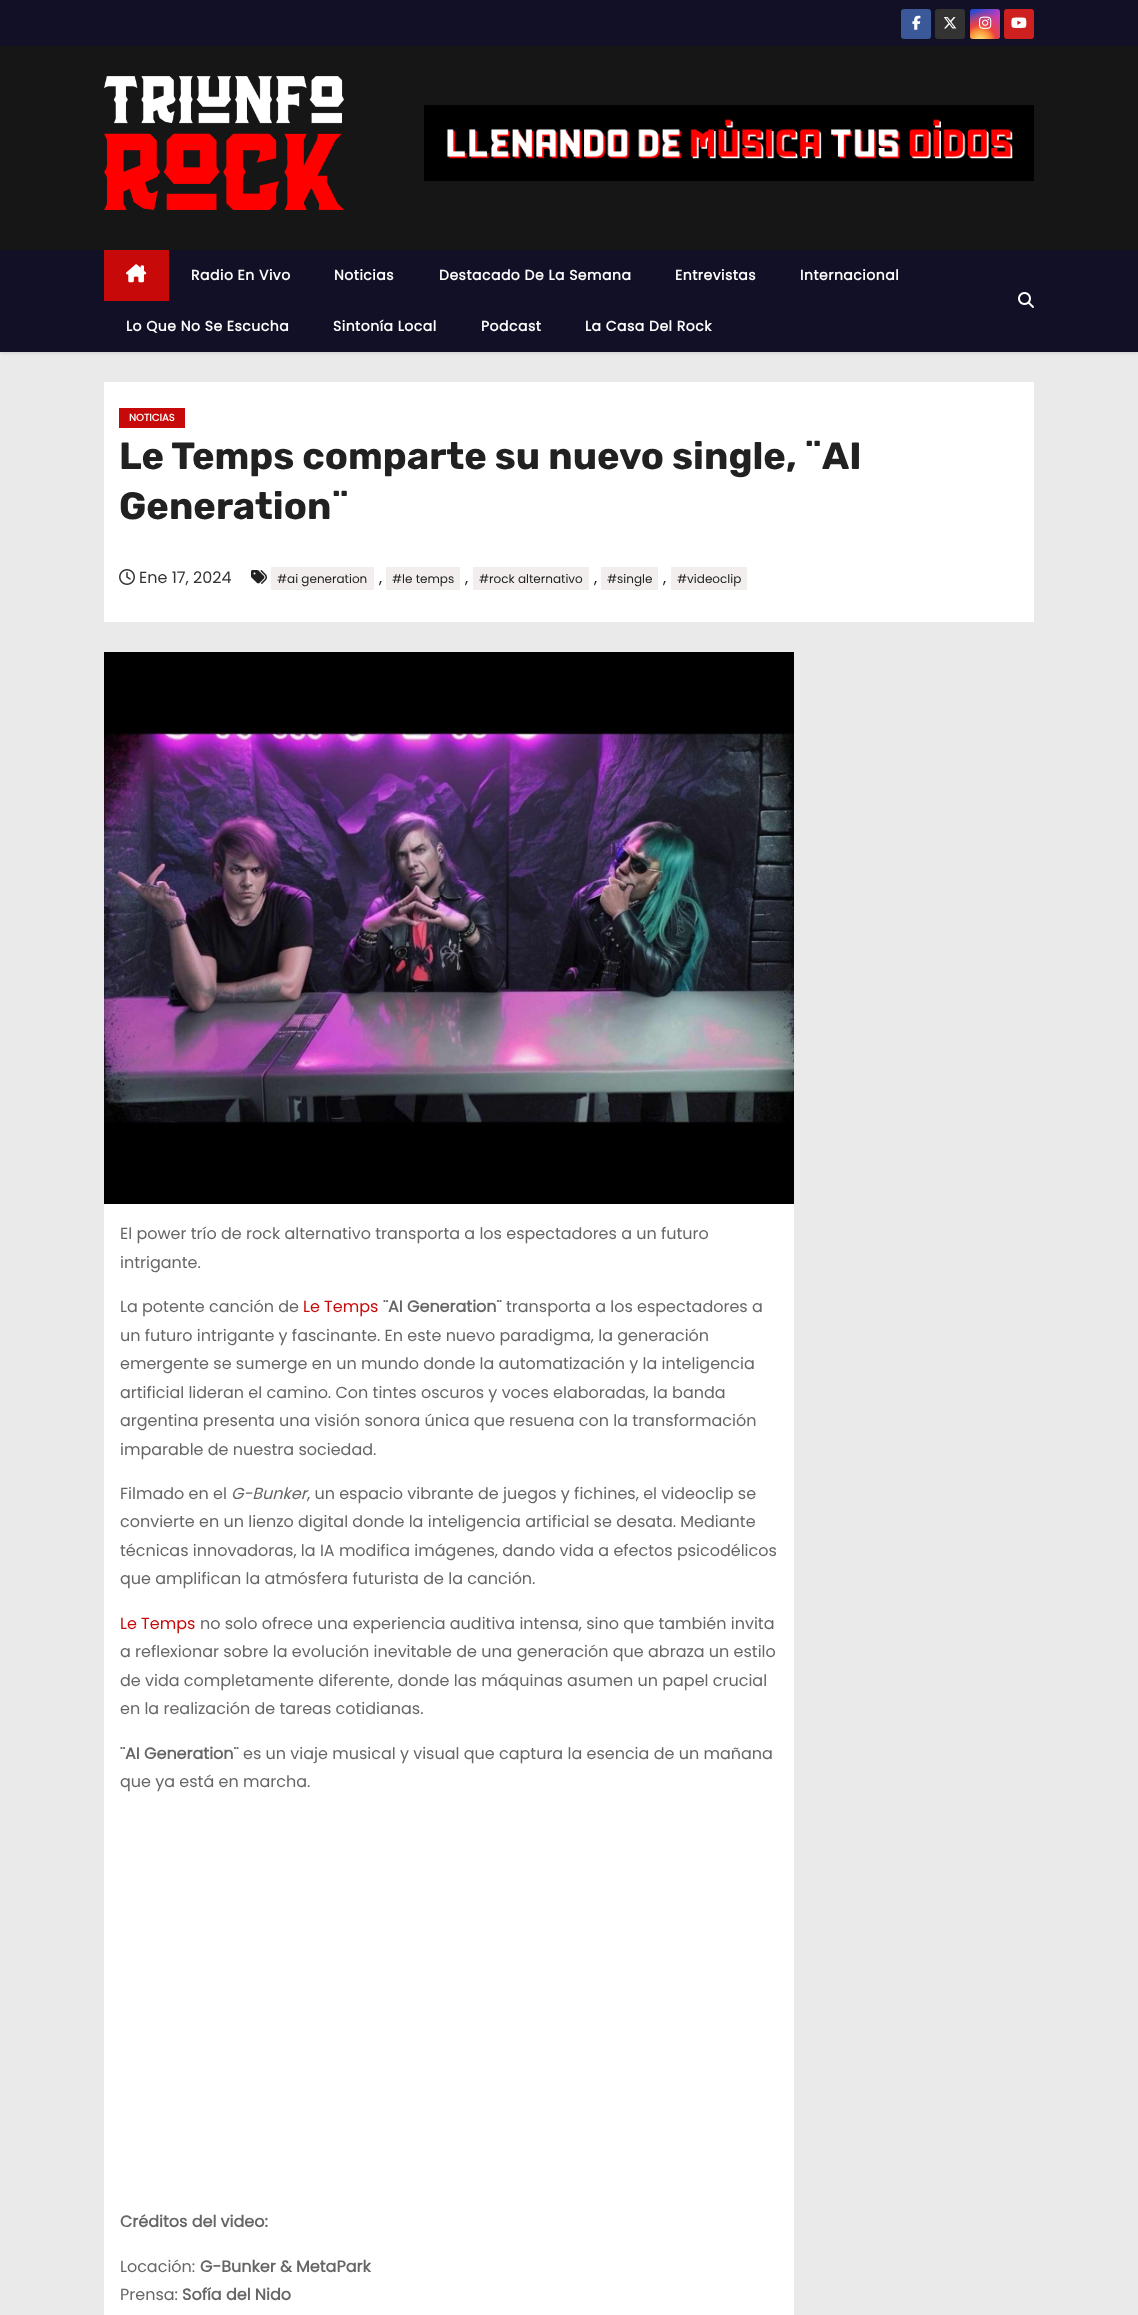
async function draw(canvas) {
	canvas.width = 1138;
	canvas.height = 2315;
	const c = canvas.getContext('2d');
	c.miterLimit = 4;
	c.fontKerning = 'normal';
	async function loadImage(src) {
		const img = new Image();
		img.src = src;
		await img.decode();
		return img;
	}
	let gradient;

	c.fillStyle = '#eaeaea';
	c.fillRect(0, 0, 1138, 2315);
	c.fillStyle = '#121026';
	c.fillRect(0, 0, 1138, 46);
	c.fillStyle = '#3b5998';
	c.beginPath();
	c.roundRect(901, 9, 30, 30, 3);
	c.fill();
	c.drawImage(await loadImage('img1.png'), 912, 15, 9, 15);
	c.fillStyle = '#333';
	c.beginPath();
	c.roundRect(935, 9, 30, 30, 3);
	c.fill();
	c.drawImage(await loadImage('img2.png'), 943, 17, 14, 12);
	gradient = c.createLinearGradient(970, 9, 1000, 39);
	gradient.addColorStop(0.12, '#234bd7');
	gradient.addColorStop(0.58, '#c33cbe');
	c.fillStyle = gradient;
	c.beginPath();
	c.roundRect(970, 9, 30, 30, 3);
	c.fill();
	gradient = c.createRadialGradient(980, 41, 0, 980, 41, 38);
	gradient.addColorStop(0, '#ffe17d');
	gradient.addColorStop(0.1, '#ffcd69');
	gradient.addColorStop(0.28, '#fa9137');
	gradient.addColorStop(0.42, '#eb4141');
	gradient.addColorStop(0.82, '#eb414100');
	c.fillStyle = gradient;
	c.beginPath();
	c.roundRect(970, 9, 30, 30, 3);
	c.fill();
	c.drawImage(await loadImage('img3.png'), 979, 16, 13, 13);
	c.fillStyle = '#cd201f';
	c.beginPath();
	c.roundRect(1004, 9, 30, 30, 3);
	c.fill();
	c.drawImage(await loadImage('img4.png'), 1011, 17, 16, 11);
	c.fillStyle = '#161616';
	c.fillRect(0, 46, 1138, 204);
	c.drawImage(await loadImage('img5.png'), 104, 76, 240, 134);
	c.drawImage(await loadImage('img6.png'), 424, 105, 610, 76);
	c.fillStyle = '#00000014';
	c.filter = 'blur(1px)';
	c.beginPath();
	c.rect(0, 252, 1138, 102);
	c.fill();
	c.filter = 'none';
	c.fillStyle = '#121026';
	c.fillRect(0, 250, 1138, 102);
	c.fillStyle = '#c70909';
	c.fillRect(104, 250, 65, 51);
	c.drawImage(await loadImage('img7.png'), 126, 264, 21, 19);
	c.letterSpacing = '0.5px';
	c.font = 'bold 14px Poppins';
	c.fillStyle = '#fff';
	for (const [text, x, y] of [
		['Radio En Vivo', 191, 280],
		['Noticias', 334, 280],
		['Destacado De La Semana', 439, 280],
		['Entrevistas', 675, 280],
		['Internacional', 800, 280],
		['Lo Que No Se Escucha', 126, 331],
		['Sintonía Local', 333, 331],
		['Podcast', 481, 331],
		['La Casa Del Rock', 585, 331],
	]) {
		c.fillText(text, x, y);
	}
	c.drawImage(await loadImage('img8.png'), 1018, 292, 16, 16);
	c.fillRect(104, 382, 930, 240);
	c.fillStyle = '#c70909';
	c.fillRect(119, 408, 66, 20);
	c.letterSpacing = '0px';
	c.font = 'bold 10px Poppins';
	c.fillStyle = '#fff';
	c.fillText('NOTICIAS', 129, 421);
	c.font = 'bold 38px Rubik';
	c.fillStyle = '#212121';
	c.fillText('Le Temps comparte su nuevo single, ¨AI', 119, 469);
	c.fillText('Generation¨', 119, 519);
	c.drawImage(await loadImage('img9.png'), 119, 569, 16, 16);
	c.font = '16px Poppins';
	c.fillStyle = '#333';
	c.fillText('Ene 17, 2024', 139, 583);
	c.drawImage(await loadImage('img10.png'), 251, 570, 16, 14);
	c.fillStyle = '#f3eeee';
	c.fillRect(271, 567, 103, 23);
	c.font = '12px Poppins';
	c.fillStyle = '#212121';
	c.fillText('#ai generation', 277, 583);
	c.font = '16px Poppins';
	c.fillText(',', 379, 583);
	c.fillStyle = '#f3eeee';
	c.fillRect(386, 567, 74, 23);
	c.font = '12px Poppins';
	c.fillStyle = '#212121';
	c.fillText('#le temps', 392, 583);
	c.font = '16px Poppins';
	c.fillText(',', 465, 583);
	c.fillStyle = '#f3eeee';
	c.fillRect(473, 567, 116, 23);
	c.font = '12px Poppins';
	c.fillStyle = '#212121';
	c.fillText('#rock alternativo', 479, 583);
	c.font = '16px Poppins';
	c.fillText(',', 594, 583);
	c.fillStyle = '#f3eeee';
	c.fillRect(601, 567, 57, 23);
	c.font = '12px Poppins';
	c.fillStyle = '#212121';
	c.fillText('#single', 607, 583);
	c.font = '16px Poppins';
	c.fillText(',', 663, 583);
	c.fillStyle = '#f3eeee';
	c.fillRect(671, 567, 76, 23);
	c.font = '12px Poppins';
	c.fillStyle = '#212121';
	c.fillText('#videoclip', 677, 583);
	c.drawImage(await loadImage('img11.png'), 104, 652, 690, 552);
	c.fillStyle = '#fff';
	c.fillRect(104, 1204, 690, 1111);
	c.font = '16px Poppins';
	c.fillStyle = '#666';
	for (const [text, x, y] of [
		['El power trío de rock alternativo transporta a los espectadores a un futuro', 120, 1239],
		['intrigante.', 120, 1268],
		['La potente canción de', 120, 1312],
	]) {
		c.fillText(text, x, y);
	}
	c.fillStyle = '#c70909';
	c.fillText('Le Temps', 303, 1312);
	c.font = 'bold 16px Poppins';
	c.fillStyle = '#666';
	c.fillText('¨AI Generation¨', 383, 1312);
	c.font = '16px Poppins';
	for (const [text, x, y] of [
		['transporta a los espectadores a', 506, 1312],
		['un futuro intrigante y fascinante. En este nuevo paradigma, la generación', 120, 1341],
		['emergente se sumerge en un mundo donde la automatización y la inteligencia', 120, 1369],
		['artificial lideran el camino. Con tintes oscuros y voces elaboradas, la banda', 120, 1398],
		['argentina presenta una visión sonora única que resuena con la transformación', 120, 1426],
		['imparable de nuestra sociedad.', 120, 1455],
		['Filmado en el', 120, 1499],
	]) {
		c.fillText(text, x, y);
	}
	c.font = 'italic 16px Poppins';
	c.fillText('G-Bunker', 231, 1499);
	c.font = '16px Poppins';
	for (const [text, x, y] of [
		[', un espacio vibrante de juegos y fichines, el videoclip se', 307, 1499],
		['convierte en un lienzo digital donde la inteligencia artificial se desata. Mediante', 120, 1527],
		['técnicas innovadoras, la IA modifica imágenes, dando vida a efectos psicodélicos', 120, 1556],
		['que amplifican la atmósfera futurista de la canción.', 120, 1584],
	]) {
		c.fillText(text, x, y);
	}
	c.fillStyle = '#c70909';
	c.fillText('Le Temps', 120, 1629);
	c.fillStyle = '#666';
	for (const [text, x, y] of [
		['no solo ofrece una experiencia auditiva intensa, sino que también invita', 200, 1629],
		['a reflexionar sobre la evolución inevitable de una generación que abraza un estilo', 120, 1657],
		['de vida completamente diferente, donde las máquinas asumen un papel crucial', 120, 1686],
		['en la realización de tareas cotidianas.', 120, 1714],
	]) {
		c.fillText(text, x, y);
	}
	c.font = 'bold 16px Poppins';
	c.fillText('¨AI Generation¨', 120, 1759);
	c.font = '16px Poppins';
	c.fillText('es un viaje musical y visual que captura la esencia de un mañana', 243, 1759);
	c.fillText('que ya está en marcha.', 120, 1787);
	c.font = 'bold 16px Poppins';
	c.fillText('Créditos del video:', 120, 2227);
	c.font = '16px Poppins';
	c.fillText('Locación:', 120, 2272);
	c.font = 'bold 16px Poppins';
	c.fillText('G-Bunker & MetaPark', 200, 2272);
	c.font = '16px Poppins';
	c.fillText('Prensa:', 120, 2300);
	c.font = 'bold 16px Poppins';
	c.fillText('Sofía del Nido', 182, 2300);
}

draw(document.querySelector('canvas'));
